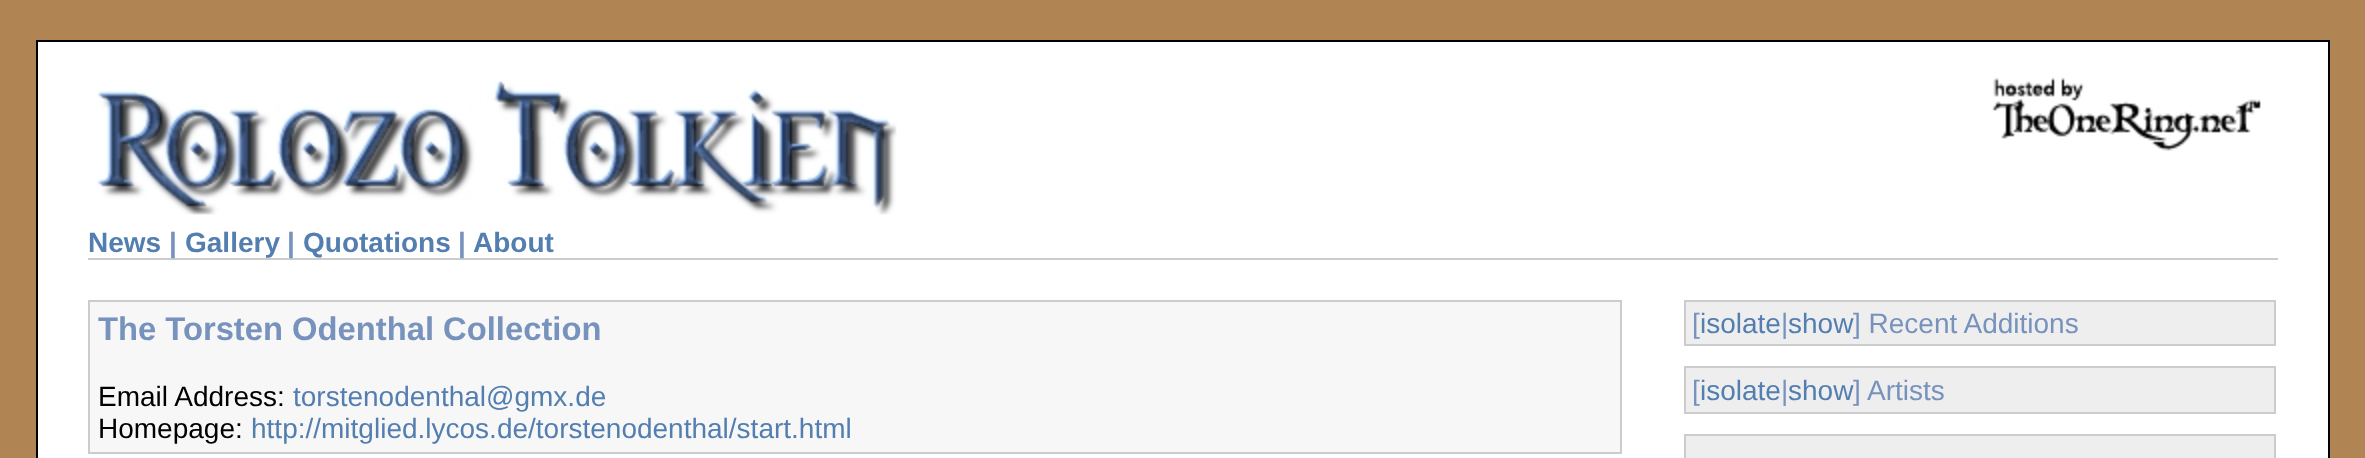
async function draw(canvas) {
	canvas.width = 2365;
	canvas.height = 458;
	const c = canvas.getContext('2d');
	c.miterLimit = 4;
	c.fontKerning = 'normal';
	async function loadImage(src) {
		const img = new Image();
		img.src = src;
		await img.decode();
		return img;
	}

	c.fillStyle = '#b08553';
	c.fillRect(0, 0, 2365, 458);
	c.fillStyle = '#fff';
	c.beginPath();
	c.rect(37, 41, 2292, 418);
	c.fill();
	c.strokeStyle = '#000';
	c.lineWidth = 2;
	c.stroke();
	c.drawImage(await loadImage('img1.png'), 97, 80, 800, 135);
	c.drawImage(await loadImage('img2.png'), 1991, 77, 270, 74);
	c.fillStyle = '#ccc';
	c.fillRect(88, 258, 2190, 2);
	c.font = 'bold 28px Liberation Sans';
	c.fillStyle = '#537eb0';
	c.fillText('News', 88, 252);
	c.fillStyle = '#7792bc';
	c.fillText('|', 169, 252);
	c.fillStyle = '#537eb0';
	c.fillText('Gallery', 185, 252);
	c.fillStyle = '#7792bc';
	c.fillText('|', 287, 252);
	c.fillStyle = '#537eb0';
	c.fillText('Quotations', 303, 252);
	c.fillStyle = '#7792bc';
	c.fillText('|', 458, 252);
	c.fillStyle = '#537eb0';
	c.fillText('About', 473, 252);
	c.fillStyle = '#f7f7f7';
	c.beginPath();
	c.rect(89, 301, 1532, 152);
	c.fill();
	c.strokeStyle = '#ccc';
	c.stroke();
	c.font = 'bold 32.75px Liberation Sans';
	c.fillStyle = '#7792bc';
	c.fillText('The Torsten Odenthal Collection', 98, 340);
	c.font = '28px Liberation Sans';
	c.fillStyle = '#000';
	c.fillText('Email Address:', 98, 406);
	c.fillStyle = '#537eb0';
	c.fillText('torstenodenthal@gmx.de', 293, 406);
	c.fillStyle = '#000';
	c.fillText('Homepage:', 98, 438);
	c.fillStyle = '#537eb0';
	c.fillText('http://mitglied.lycos.de/torstenodenthal/start.html', 251, 438);
	c.fillStyle = '#eee';
	c.beginPath();
	c.rect(1685, 301, 590, 44);
	c.fill();
	c.stroke();
	c.fillStyle = '#7792bc';
	c.fillText('[', 1692, 333);
	c.fillStyle = '#537eb0';
	c.fillText('isolate', 1700, 333);
	c.fillStyle = '#7792bc';
	c.fillText('|', 1781, 333);
	c.fillStyle = '#537eb0';
	c.fillText('show', 1788, 333);
	c.fillStyle = '#7792bc';
	c.fillText('] Recent Additions', 1853, 333);
	c.fillStyle = '#eee';
	c.beginPath();
	c.rect(1685, 367, 590, 46);
	c.fill();
	c.stroke();
	c.fillStyle = '#7792bc';
	c.fillText('[', 1692, 400);
	c.fillStyle = '#537eb0';
	c.fillText('isolate', 1700, 400);
	c.fillStyle = '#7792bc';
	c.fillText('|', 1781, 400);
	c.fillStyle = '#537eb0';
	c.fillText('show', 1788, 400);
	c.fillStyle = '#7792bc';
	c.fillText('] Artists', 1853, 400);
	for (const [x, y, w, h, color] of [
		[1686, 436, 588, 22, '#eee'],
		[1684, 434, 592, 2, '#ccc'],
		[2274, 434, 2, 24, '#ccc'],
		[1684, 434, 2, 24, '#ccc'],
	]) {
		c.fillStyle = color;
		c.fillRect(x, y, w, h);
	}
}

draw(document.querySelector('canvas'));
